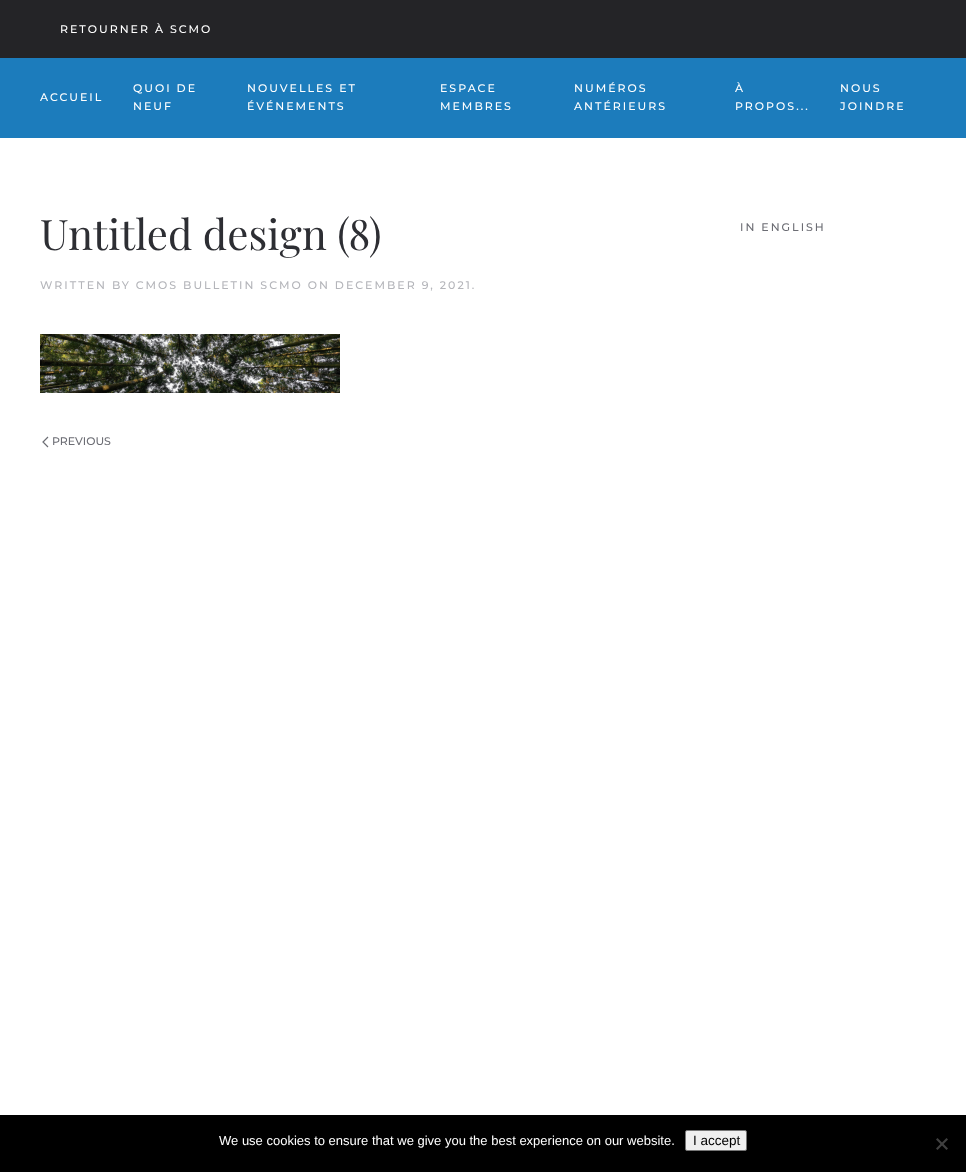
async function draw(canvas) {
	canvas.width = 966;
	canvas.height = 1172;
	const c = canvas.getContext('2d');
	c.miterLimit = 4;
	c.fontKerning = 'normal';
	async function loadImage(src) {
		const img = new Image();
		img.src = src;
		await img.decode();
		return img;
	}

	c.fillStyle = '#fff';
	c.fillRect(0, 0, 966, 1172);
	c.fillStyle = '#242427';
	c.fillRect(0, 0, 966, 58);
	c.letterSpacing = '2px';
	c.font = '100 11px Montserrat';
	c.fillStyle = '#fff';
	c.fillText('RETOURNER À SCMO', 60, 33);
	c.fillStyle = '#1c7cbc';
	c.fillRect(0, 58, 966, 80);
	c.fillStyle = '#fff';
	for (const [text, x, y] of [
		['ACCUEIL', 40, 101],
		['QUOI DE', 133, 92],
		['NEUF', 133, 110],
		['NOUVELLES ET', 247, 92],
		['ÉVÉNEMENTS', 247, 110],
		['ESPACE', 440, 92],
		['MEMBRES', 440, 110],
		['NUMÉROS', 574, 92],
		['ANTÉRIEURS', 574, 110],
		['À', 735, 92],
		['PROPOS...', 735, 110],
		['NOUS', 840, 92],
		['JOINDRE', 840, 110],
	]) {
		c.fillText(text, x, y);
	}
	c.letterSpacing = '0px';
	c.font = '42px Playfair Display';
	c.fillStyle = '#2d2e33';
	c.fillText('Untitled design (8)', 40, 250);
	c.letterSpacing = '2px';
	c.font = '100 11px Montserrat';
	c.fillStyle = '#b4b5ba';
	c.fillText('WRITTEN BY CMOS BULLETIN SCMO ON DECEMBER 9, 2021.', 40, 289);
	c.drawImage(await loadImage('img1.png'), 40, 334, 300, 59);
	c.beginPath();
	c.moveTo(48, 437);
	c.lineTo(43, 442);
	c.lineTo(48, 447);
	c.strokeStyle = '#6c6d74';
	c.lineWidth = 1.2;
	c.stroke();
	c.letterSpacing = '0px';
	c.fillStyle = '#6c6d74';
	c.fillText('PREVIOUS', 52, 445);
	c.letterSpacing = '2px';
	c.fillText('IN ENGLISH', 740, 231);
	c.fillStyle = '#000';
	c.fillRect(0, 1115, 966, 57);
	c.letterSpacing = '0px';
	c.font = '13px Liberation Sans';
	c.fillStyle = '#fff';
	c.fillText('We use cookies to ensure that we give you the best experience on our website.', 219, 1145);
	c.fillStyle = '#efefef';
	c.beginPath();
	c.roundRect(685.5, 1130.5, 61, 20, 1.5);
	c.fill();
	c.strokeStyle = '#767676';
	c.lineWidth = 1;
	c.stroke();
	c.font = '13.5px Liberation Sans';
	c.fillStyle = '#000';
	c.fillText('I accept', 693, 1145);
	c.fillStyle = '#404040';
	c.beginPath();
	c.moveTo(946.5, 1138);
	c.lineTo(948, 1139.5);
	c.lineTo(937.5, 1150);
	c.lineTo(936, 1148.5);
	c.closePath();
	c.fill();
	c.beginPath();
	c.moveTo(936, 1139.5);
	c.lineTo(937.5, 1138);
	c.lineTo(948, 1148.5);
	c.lineTo(946.5, 1150);
	c.closePath();
	c.fill();
}

draw(document.querySelector('canvas'));
